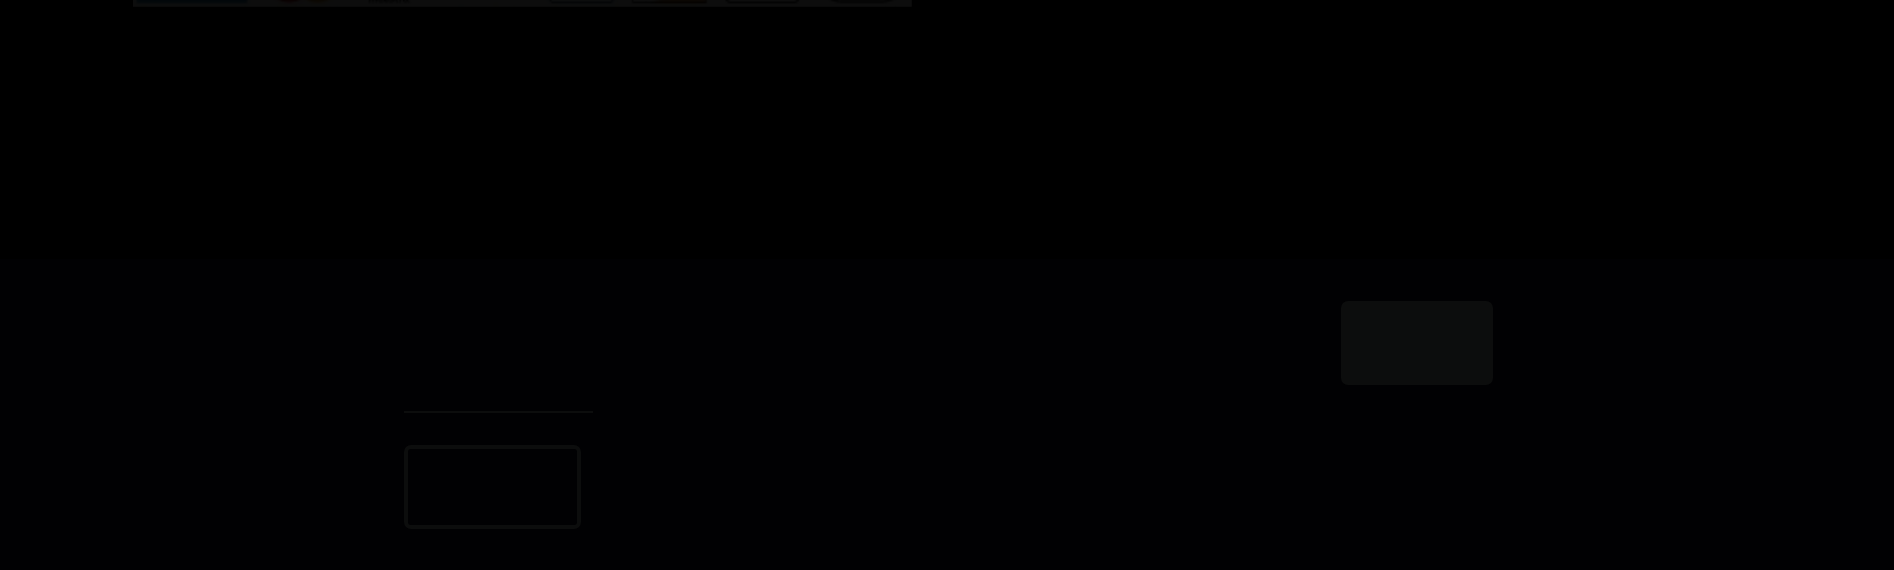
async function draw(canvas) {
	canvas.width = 1894;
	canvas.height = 570;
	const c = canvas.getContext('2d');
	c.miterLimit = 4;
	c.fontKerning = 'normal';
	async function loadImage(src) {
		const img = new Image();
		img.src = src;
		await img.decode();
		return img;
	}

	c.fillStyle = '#000';
	c.fillRect(0, 0, 1894, 570);
	c.drawImage(await loadImage('img1.png'), 133, 0, 779, 7);
	c.fillStyle = '#010103';
	c.fillRect(0, 259, 1894, 311);
	c.fillStyle = '#0c0d0d';
	c.beginPath();
	c.roundRect(1341, 301, 152, 84, 7);
	c.fill();
	c.fillRect(404, 411, 189, 2);
	c.beginPath();
	c.roundRect(406, 447, 173, 80, 5);
	c.strokeStyle = '#0c0d0d';
	c.lineWidth = 4;
	c.stroke();
}

draw(document.querySelector('canvas'));
